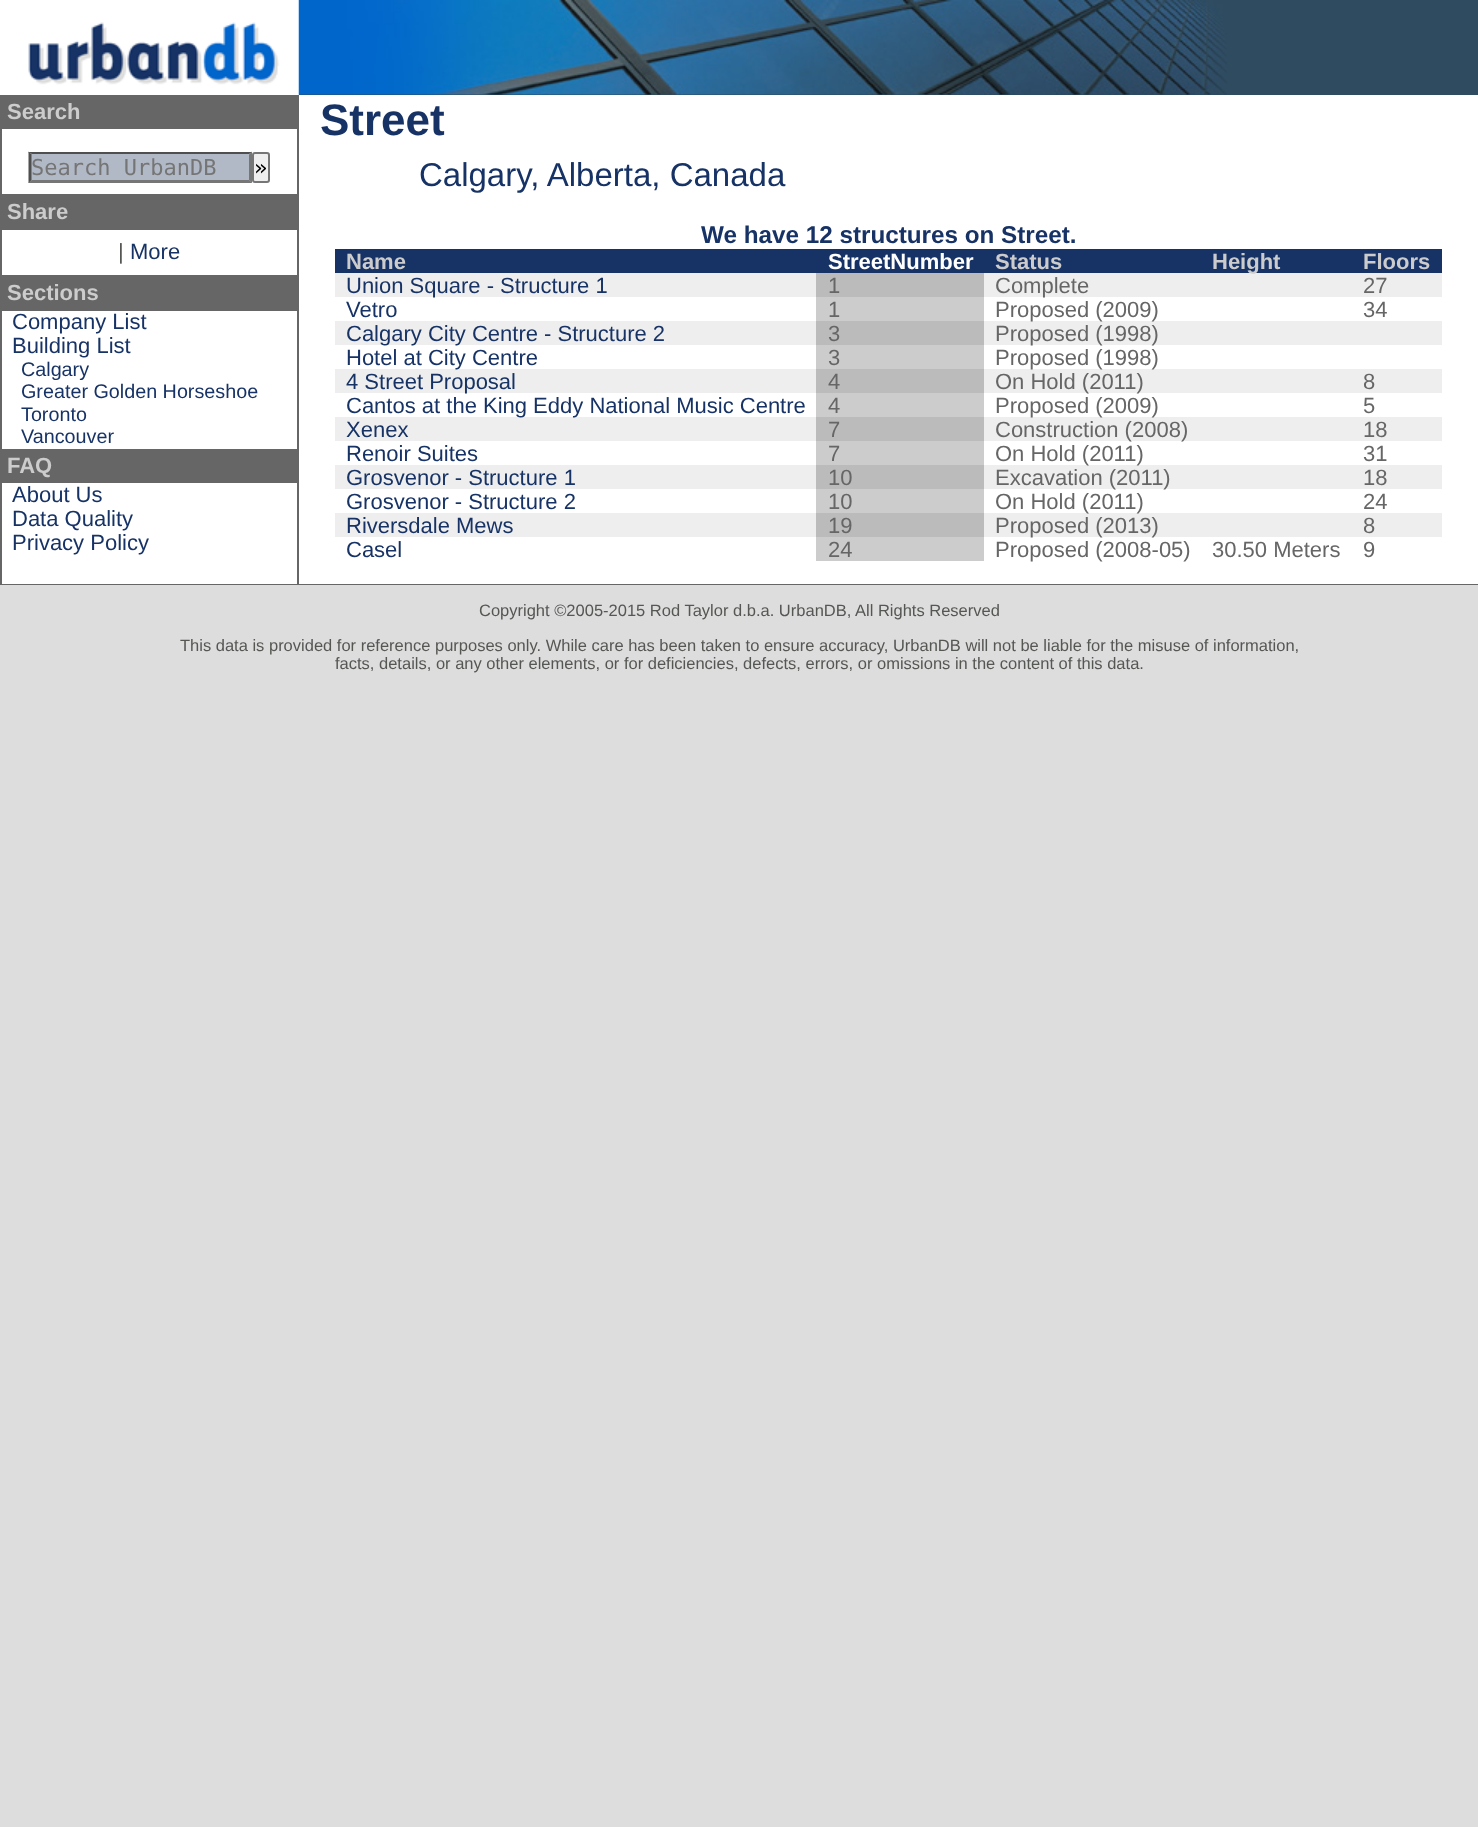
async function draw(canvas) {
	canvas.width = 1478;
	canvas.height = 1827;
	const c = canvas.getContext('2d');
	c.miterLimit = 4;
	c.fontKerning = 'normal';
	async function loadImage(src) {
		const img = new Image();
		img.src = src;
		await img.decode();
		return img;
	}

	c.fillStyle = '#ddd';
	c.fillRect(0, 0, 1478, 1827);
	c.fillStyle = '#fff';
	c.fillRect(0, 0, 299, 95);
	c.fillStyle = '#2f4b60';
	c.fillRect(299, 0, 1179, 95);
	c.drawImage(await loadImage('img2.png'), 298, 0, 929, 95);
	c.drawImage(await loadImage('img1.png'), 28, 0, 271, 95);
	for (const [x, y, w, h, color] of [
		[2, 129, 295, 455, '#fff'],
		[297, 95, 2, 490, '#666'],
		[0, 584, 1478, 1, '#666'],
		[0, 95, 2, 490, '#666'],
		[2, 95, 295, 34, '#666'],
	]) {
		c.fillStyle = color;
		c.fillRect(x, y, w, h);
	}
	c.font = 'bold 22px Liberation Sans';
	c.fillStyle = '#ccc';
	c.fillText('Search', 7, 119);
	c.fillStyle = '#b2b9c6';
	c.fillRect(29, 152, 223, 31);
	c.fillStyle = '#4f4f4f';
	c.beginPath();
	c.moveTo(28, 152);
	c.lineTo(252, 152);
	c.lineTo(249, 154);
	c.lineTo(32, 154);
	c.closePath();
	c.fill();
	c.fillStyle = '#767676';
	c.beginPath();
	c.moveTo(252, 151.5);
	c.lineTo(252, 183);
	c.lineTo(249, 180);
	c.lineTo(249, 154.5);
	c.closePath();
	c.fill();
	c.beginPath();
	c.moveTo(252, 183);
	c.lineTo(28, 183);
	c.lineTo(32, 180);
	c.lineTo(249, 180);
	c.closePath();
	c.fill();
	c.fillStyle = '#4f4f4f';
	c.beginPath();
	c.moveTo(28.5, 183);
	c.lineTo(28.5, 151.5);
	c.lineTo(31.5, 154.5);
	c.lineTo(31.5, 180);
	c.closePath();
	c.fill();
	c.font = '22px DejaVu Sans Mono';
	c.fillStyle = '#757575';
	c.fillText('Search UrbanDB', 31, 175);
	c.fillStyle = '#efefef';
	c.beginPath();
	c.roundRect(253, 153, 16, 29, 2);
	c.fill();
	c.strokeStyle = '#767676';
	c.lineWidth = 2;
	c.stroke();
	c.fillStyle = '#000';
	c.fillText('»', 254, 175);
	c.fillStyle = '#666';
	c.fillRect(2, 194, 295, 36);
	c.font = 'bold 22px Liberation Sans';
	c.fillStyle = '#ccc';
	c.fillText('Share', 7, 219);
	c.font = '22px Liberation Sans';
	c.fillStyle = '#555753';
	c.fillText('|', 118, 259);
	c.fillStyle = '#173366';
	c.fillText('More', 130, 259);
	c.fillStyle = '#666';
	c.fillRect(2, 275, 295, 36);
	c.font = 'bold 22px Liberation Sans';
	c.fillStyle = '#ccc';
	c.fillText('Sections', 7, 300);
	c.font = '22px Liberation Sans';
	c.fillStyle = '#173366';
	c.fillText('Company List', 12, 329);
	c.fillText('Building List', 12, 353);
	c.font = '19.75px Liberation Sans';
	for (const [text, x, y] of [
		['Calgary', 21, 376],
		['Greater Golden Horseshoe', 21, 398],
		['Toronto', 21, 421],
		['Vancouver', 21, 443],
	]) {
		c.fillText(text, x, y);
	}
	c.fillStyle = '#666';
	c.fillRect(2, 449, 295, 34);
	c.font = 'bold 22px Liberation Sans';
	c.fillStyle = '#ccc';
	c.fillText('FAQ', 7, 473);
	c.font = '22px Liberation Sans';
	c.fillStyle = '#173366';
	for (const [text, x, y] of [
		['About Us', 12, 502],
		['Data Quality', 12, 526],
		['Privacy Policy', 12, 550],
	]) {
		c.fillText(text, x, y);
	}
	c.fillStyle = '#fff';
	c.fillRect(299, 95, 1179, 489);
	c.font = 'bold 44px Liberation Sans';
	c.fillStyle = '#173366';
	c.fillText('Street', 320, 135);
	c.font = '33px Liberation Sans';
	c.fillText('Calgary, Alberta, Canada', 419, 186);
	c.font = 'bold 24.25px Liberation Sans';
	c.fillText('We have 12 structures on Street.', 701, 243);
	c.fillRect(335, 249, 1107, 24);
	c.font = 'bold 22px Liberation Sans';
	c.fillStyle = '#ccc';
	c.fillText('Name', 346, 269);
	c.fillStyle = '#fff';
	c.fillText('StreetNumber', 828, 269);
	c.fillStyle = '#ccc';
	c.fillText('Status', 995, 269);
	c.fillStyle = '#eee';
	c.fillRect(335, 273, 1107, 24);
	c.fillStyle = '#ccc';
	c.fillText('Height', 1212, 269);
	c.fillText('Floors', 1363, 269);
	c.font = '22px Liberation Sans';
	c.fillStyle = '#173366';
	c.fillText('Union Square - Structure 1', 346, 293);
	c.fillStyle = '#bbb';
	c.fillRect(816, 273, 168, 24);
	c.fillStyle = '#666';
	for (const [text, x, y] of [
		['1', 828, 293],
		['Complete', 995, 293],
		['27', 1363, 293],
	]) {
		c.fillText(text, x, y);
	}
	c.fillStyle = '#173366';
	c.fillText('Vetro', 346, 317);
	c.fillStyle = '#ccc';
	c.fillRect(816, 297, 168, 24);
	c.fillStyle = '#666';
	c.fillText('1', 828, 317);
	c.fillStyle = '#eee';
	c.fillRect(335, 321, 1107, 24);
	c.fillStyle = '#666';
	c.fillText('Proposed (2009)', 995, 317);
	c.fillText('34', 1363, 317);
	c.fillStyle = '#173366';
	c.fillText('Calgary City Centre - Structure 2', 346, 341);
	c.fillStyle = '#bbb';
	c.fillRect(816, 321, 168, 24);
	c.fillStyle = '#666';
	c.fillText('3', 828, 341);
	c.fillText('Proposed (1998)', 995, 341);
	c.fillStyle = '#eee';
	c.fillRect(335, 369, 1107, 24);
	c.fillStyle = '#173366';
	c.fillText('Hotel at City Centre', 346, 365);
	c.fillStyle = '#ccc';
	c.fillRect(816, 345, 168, 24);
	c.fillStyle = '#666';
	c.fillText('3', 828, 365);
	c.fillText('Proposed (1998)', 995, 365);
	c.fillStyle = '#173366';
	c.fillText('4 Street Proposal', 346, 389);
	c.fillStyle = '#bbb';
	c.fillRect(816, 369, 168, 24);
	c.fillStyle = '#666';
	for (const [text, x, y] of [
		['4', 828, 389],
		['On Hold (2011)', 995, 389],
		['8', 1363, 389],
	]) {
		c.fillText(text, x, y);
	}
	c.fillStyle = '#eee';
	c.fillRect(335, 417, 1107, 24);
	c.fillStyle = '#173366';
	c.fillText('Cantos at the King Eddy National Music Centre', 346, 413);
	c.fillStyle = '#ccc';
	c.fillRect(816, 393, 168, 24);
	c.fillStyle = '#666';
	for (const [text, x, y] of [
		['4', 828, 413],
		['Proposed (2009)', 995, 413],
		['5', 1363, 413],
	]) {
		c.fillText(text, x, y);
	}
	c.fillStyle = '#173366';
	c.fillText('Xenex', 346, 437);
	c.fillStyle = '#bbb';
	c.fillRect(816, 417, 168, 24);
	c.fillStyle = '#666';
	for (const [text, x, y] of [
		['7', 828, 437],
		['Construction (2008)', 995, 437],
		['18', 1363, 437],
	]) {
		c.fillText(text, x, y);
	}
	c.fillStyle = '#173366';
	c.fillText('Renoir Suites', 346, 461);
	c.fillStyle = '#ccc';
	c.fillRect(816, 441, 168, 24);
	c.fillStyle = '#666';
	c.fillText('7', 828, 461);
	c.fillStyle = '#eee';
	c.fillRect(335, 465, 1107, 24);
	c.fillStyle = '#666';
	c.fillText('On Hold (2011)', 995, 461);
	c.fillText('31', 1363, 461);
	c.fillStyle = '#173366';
	c.fillText('Grosvenor - Structure 1', 346, 485);
	c.fillStyle = '#bbb';
	c.fillRect(816, 465, 168, 24);
	c.fillStyle = '#666';
	for (const [text, x, y] of [
		['10', 828, 485],
		['Excavation (2011)', 995, 485],
		['18', 1363, 485],
	]) {
		c.fillText(text, x, y);
	}
	c.fillStyle = '#173366';
	c.fillText('Grosvenor - Structure 2', 346, 509);
	c.fillStyle = '#ccc';
	c.fillRect(816, 489, 168, 24);
	c.fillStyle = '#666';
	c.fillText('10', 828, 509);
	c.fillStyle = '#eee';
	c.fillRect(335, 513, 1107, 24);
	c.fillStyle = '#666';
	c.fillText('On Hold (2011)', 995, 509);
	c.fillText('24', 1363, 509);
	c.fillStyle = '#173366';
	c.fillText('Riversdale Mews', 346, 533);
	c.fillStyle = '#bbb';
	c.fillRect(816, 513, 168, 24);
	c.fillStyle = '#666';
	for (const [text, x, y] of [
		['19', 828, 533],
		['Proposed (2013)', 995, 533],
		['8', 1363, 533],
	]) {
		c.fillText(text, x, y);
	}
	c.fillStyle = '#173366';
	c.fillText('Casel', 346, 557);
	c.fillStyle = '#ccc';
	c.fillRect(816, 537, 168, 24);
	c.fillStyle = '#666';
	for (const [text, x, y] of [
		['24', 828, 557],
		['Proposed (2008-05)', 995, 557],
		['30.50 Meters', 1212, 557],
		['9', 1363, 557],
	]) {
		c.fillText(text, x, y);
	}
	c.font = '16.5px Liberation Sans';
	c.fillStyle = '#555753';
	for (const [text, x, y] of [
		['Copyright ©2005-2015 Rod Taylor d.b.a. UrbanDB, All Rights Reserved', 479, 616],
		['This data is provided for reference purposes only. While care has been taken to ensure accuracy, UrbanDB will not be liable for the misuse of information,', 180, 651],
		['facts, details, or any other elements, or for deficiencies, defects, errors, or omissions in the content of this data.', 335, 669],
	]) {
		c.fillText(text, x, y);
	}
}

draw(document.querySelector('canvas'));
